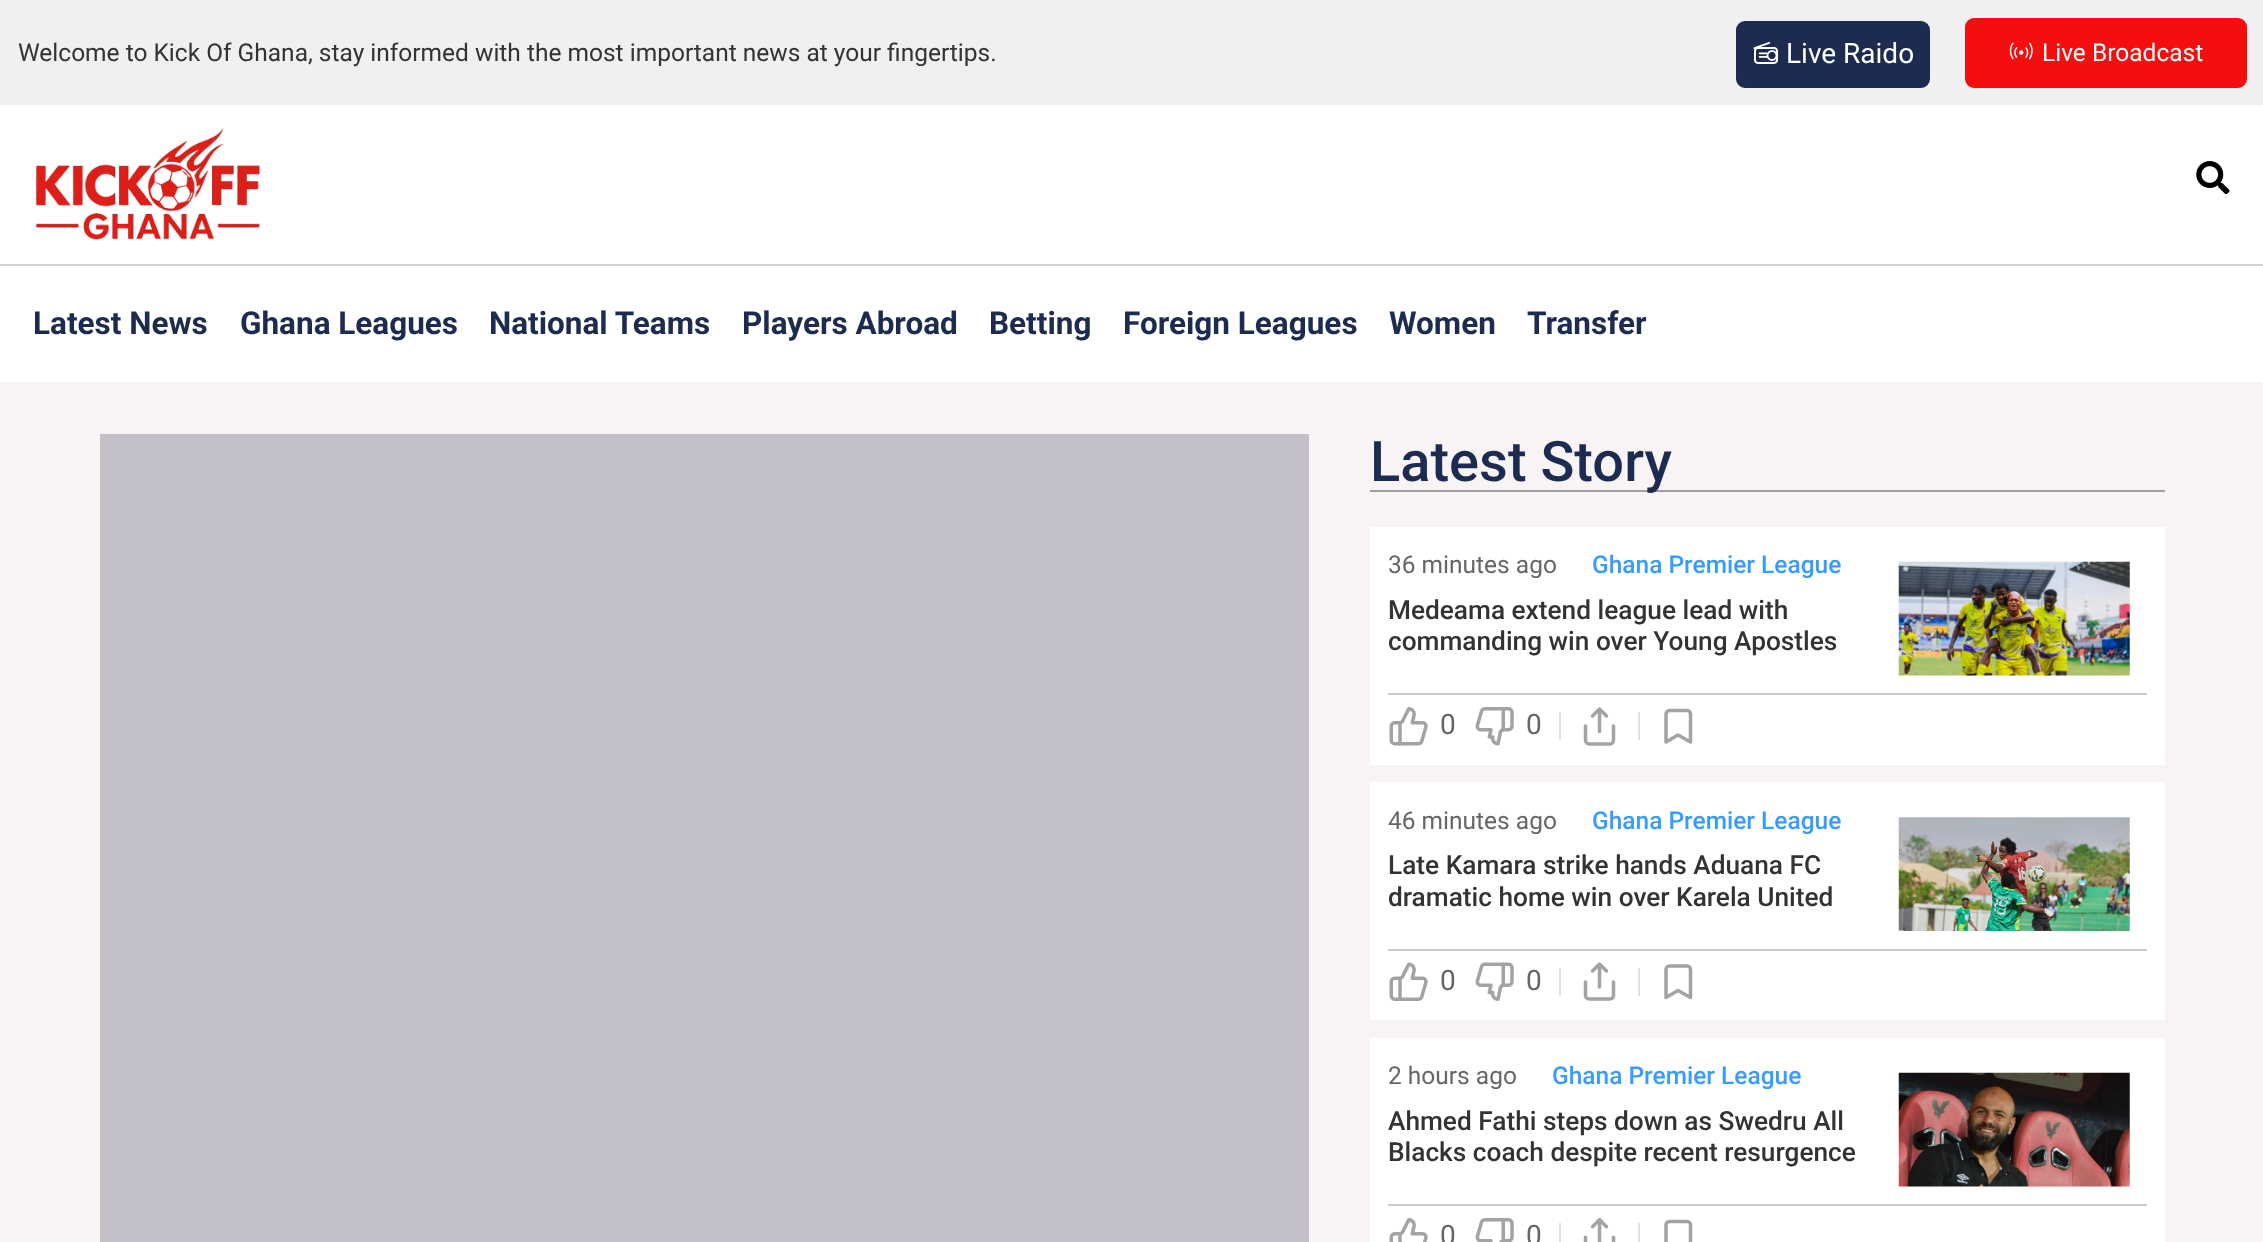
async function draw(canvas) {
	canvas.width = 2263;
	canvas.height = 1242;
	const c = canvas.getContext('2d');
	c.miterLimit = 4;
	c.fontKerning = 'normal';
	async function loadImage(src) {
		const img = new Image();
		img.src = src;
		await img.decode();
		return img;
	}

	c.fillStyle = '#f8f3f4';
	c.fillRect(0, 0, 2263, 1242);
	c.fillStyle = '#f0f0f0';
	c.fillRect(0, 0, 2263, 105);
	c.font = '24.5px Roboto';
	c.fillStyle = '#333';
	c.fillText('Welcome to Kick Of Ghana, stay informed with the most important news at your fingertips.', 18, 61);
	c.fillStyle = '#1c2b4f';
	c.beginPath();
	c.roundRect(1737, 22, 192, 65, 8);
	c.fill();
	c.strokeStyle = '#1c2b4f';
	c.lineWidth = 2;
	c.stroke();
	c.drawImage(await loadImage('img1.png'), 1753, 42, 25, 22);
	c.font = '28px Roboto';
	c.fillStyle = '#fff';
	c.fillText('Live Raido', 1786, 63);
	c.fillStyle = '#f50e0e';
	c.beginPath();
	c.roundRect(1966, 19, 280, 68, 8);
	c.fill();
	c.strokeStyle = '#f50e0e';
	c.stroke();
	c.drawImage(await loadImage('img2.png'), 2009, 42, 24, 18);
	c.font = '24.5px Roboto';
	c.fillStyle = '#fff';
	c.fillText('Live Broadcast', 2042, 61);
	c.fillRect(0, 105, 2263, 159);
	c.fillStyle = '#d5d0d0';
	c.fillRect(0, 264, 2263, 2);
	c.drawImage(await loadImage('img3.png'), 35, 128, 226, 112);
	c.drawImage(await loadImage('img4.png'), 2196, 161, 34, 33);
	c.fillStyle = '#fff';
	c.fillRect(0, 266, 2263, 116);
	c.font = 'bold 31.5px Roboto';
	c.fillStyle = '#1c2b4f';
	for (const [text, x, y] of [
		['Latest News', 33, 334],
		['Ghana Leagues', 240, 334],
		['National Teams', 489, 334],
		['Players Abroad', 742, 334],
		['Betting', 989, 334],
		['Foreign Leagues', 1123, 334],
		['Women', 1389, 334],
		['Transfer', 1527, 334],
	]) {
		c.fillText(text, x, y);
	}
	c.fillStyle = '#c4c0c9';
	c.fillRect(100, 434, 1209, 808);
	c.fillStyle = '#a09e9e';
	c.fillRect(1370, 490, 795, 2);
	c.font = '500 56px Roboto';
	c.fillStyle = '#1c2b4f';
	c.fillText('Latest Story', 1370, 481);
	c.fillStyle = '#fff';
	c.fillRect(1370, 527, 795, 238);
	c.font = '24.5px Roboto';
	c.fillStyle = '#666';
	c.fillText('36 minutes ago', 1388, 573);
	c.font = '500 24.5px Roboto';
	c.fillStyle = '#389bff';
	c.fillText('Ghana Premier League', 1592, 573);
	c.font = '500 26.25px Roboto';
	c.fillStyle = '#333';
	c.fillText('Medeama extend league lead with', 1388, 619);
	c.fillText('commanding win over Young Apostles', 1388, 650);
	c.drawImage(await loadImage('img5.png'), 1898, 561, 232, 115);
	c.fillStyle = '#cbcbcc';
	c.fillRect(1388, 693, 759, 2);
	c.drawImage(await loadImage('img6.png'), 1389, 707, 39, 39);
	c.font = '28px Roboto';
	c.fillStyle = '#666';
	c.fillText('0', 1440, 734);
	c.drawImage(await loadImage('img7.png'), 1475, 707, 39, 39);
	c.fillText('0', 1526, 734);
	c.fillStyle = '#e0e0e0';
	c.fillRect(1559, 712, 2, 28);
	c.beginPath();
	c.moveTo(1585.5, 726);
	c.lineTo(1585.5, 740);
	c.bezierCurveTo(1585.5, 742, 1587, 744, 1589, 744);
	c.lineTo(1610, 744);
	c.bezierCurveTo(1612, 744, 1613.5, 742, 1613.5, 740);
	c.lineTo(1613.5, 726);
	c.moveTo(1606.5, 716);
	c.lineTo(1599.5, 709);
	c.lineTo(1592.5, 716);
	c.moveTo(1599.5, 709);
	c.lineTo(1599.5, 731.5);
	c.strokeStyle = '#a3a3a3';
	c.lineWidth = 3.5;
	c.lineCap = 'round';
	c.lineJoin = 'round';
	c.stroke();
	c.fillRect(1638, 712, 2, 28);
	c.beginPath();
	c.moveTo(1690.5, 742);
	c.lineTo(1678, 735);
	c.lineTo(1666, 742);
	c.lineTo(1666, 714);
	c.bezierCurveTo(1666, 712, 1667.5, 710.5, 1669.5, 710.5);
	c.lineTo(1687, 710.5);
	c.bezierCurveTo(1689, 710.5, 1690.5, 712, 1690.5, 714);
	c.closePath();
	c.stroke();
	c.fillStyle = '#fff';
	c.fillRect(1370, 782, 795, 238);
	c.font = '24.5px Roboto';
	c.fillStyle = '#666';
	c.fillText('46 minutes ago', 1388, 829);
	c.font = '500 24.5px Roboto';
	c.fillStyle = '#389bff';
	c.fillText('Ghana Premier League', 1592, 829);
	c.font = '500 26.25px Roboto';
	c.fillStyle = '#333';
	c.fillText('Late Kamara strike hands Aduana FC', 1388, 874);
	c.fillText('dramatic home win over Karela United', 1388, 906);
	c.drawImage(await loadImage('img8.png'), 1898, 817, 232, 114);
	c.fillStyle = '#cbcbcc';
	c.fillRect(1388, 949, 759, 2);
	c.drawImage(await loadImage('img9.png'), 1389, 962, 39, 39);
	c.font = '28px Roboto';
	c.fillStyle = '#666';
	c.fillText('0', 1440, 990);
	c.drawImage(await loadImage('img10.png'), 1475, 962, 39, 39);
	c.fillText('0', 1526, 990);
	c.fillStyle = '#e0e0e0';
	c.fillRect(1559, 968, 2, 28);
	c.beginPath();
	c.moveTo(1585.5, 982);
	c.lineTo(1585.5, 996);
	c.bezierCurveTo(1585.5, 997.5, 1587, 999, 1589, 999);
	c.lineTo(1610, 999);
	c.bezierCurveTo(1612, 999, 1613.5, 997.5, 1613.5, 996);
	c.lineTo(1613.5, 982);
	c.moveTo(1606.5, 971);
	c.lineTo(1599.5, 964);
	c.lineTo(1592.5, 971);
	c.moveTo(1599.5, 964);
	c.lineTo(1599.5, 987);
	c.stroke();
	c.fillRect(1638, 968, 2, 28);
	c.beginPath();
	c.moveTo(1690.5, 997.5);
	c.lineTo(1678, 990.5);
	c.lineTo(1666, 997.5);
	c.lineTo(1666, 969.5);
	c.bezierCurveTo(1666, 967.5, 1667.5, 966, 1669.5, 966);
	c.lineTo(1687, 966);
	c.bezierCurveTo(1689, 966, 1690.5, 967.5, 1690.5, 969.5);
	c.closePath();
	c.stroke();
	c.fillStyle = '#fff';
	c.fillRect(1370, 1038, 795, 204);
	c.font = '24.5px Roboto';
	c.fillStyle = '#666';
	c.fillText('2 hours ago', 1388, 1084);
	c.font = '500 24.5px Roboto';
	c.fillStyle = '#389bff';
	c.fillText('Ghana Premier League', 1552, 1084);
	c.font = '500 26.25px Roboto';
	c.fillStyle = '#333';
	c.fillText('Ahmed Fathi steps down as Swedru All', 1388, 1130);
	c.fillText('Blacks coach despite recent resurgence', 1388, 1161);
	c.drawImage(await loadImage('img11.png'), 1898, 1072, 232, 115);
	c.fillStyle = '#cbcbcc';
	c.fillRect(1388, 1204, 759, 2);
	c.drawImage(await loadImage('img12.png'), 1389, 1218, 39, 24);
	c.font = '28px Roboto';
	c.fillStyle = '#666';
	c.fillText('0', 1440, 1245);
	c.drawImage(await loadImage('img13.png'), 1475, 1218, 39, 24);
	c.fillText('0', 1526, 1245);
	c.fillStyle = '#e0e0e0';
	c.fillRect(1559, 1223, 2, 19);
	c.drawImage(await loadImage('img14.png'), 1583, 1218, 33, 24);
	c.fillRect(1638, 1223, 2, 19);
	c.beginPath();
	c.moveTo(1690.5, 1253);
	c.lineTo(1678, 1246);
	c.lineTo(1666, 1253);
	c.lineTo(1666, 1225);
	c.bezierCurveTo(1666, 1223, 1667.5, 1221.5, 1669.5, 1221.5);
	c.lineTo(1687, 1221.5);
	c.bezierCurveTo(1689, 1221.5, 1690.5, 1223, 1690.5, 1225);
	c.closePath();
	c.stroke();
}

draw(document.querySelector('canvas'));
